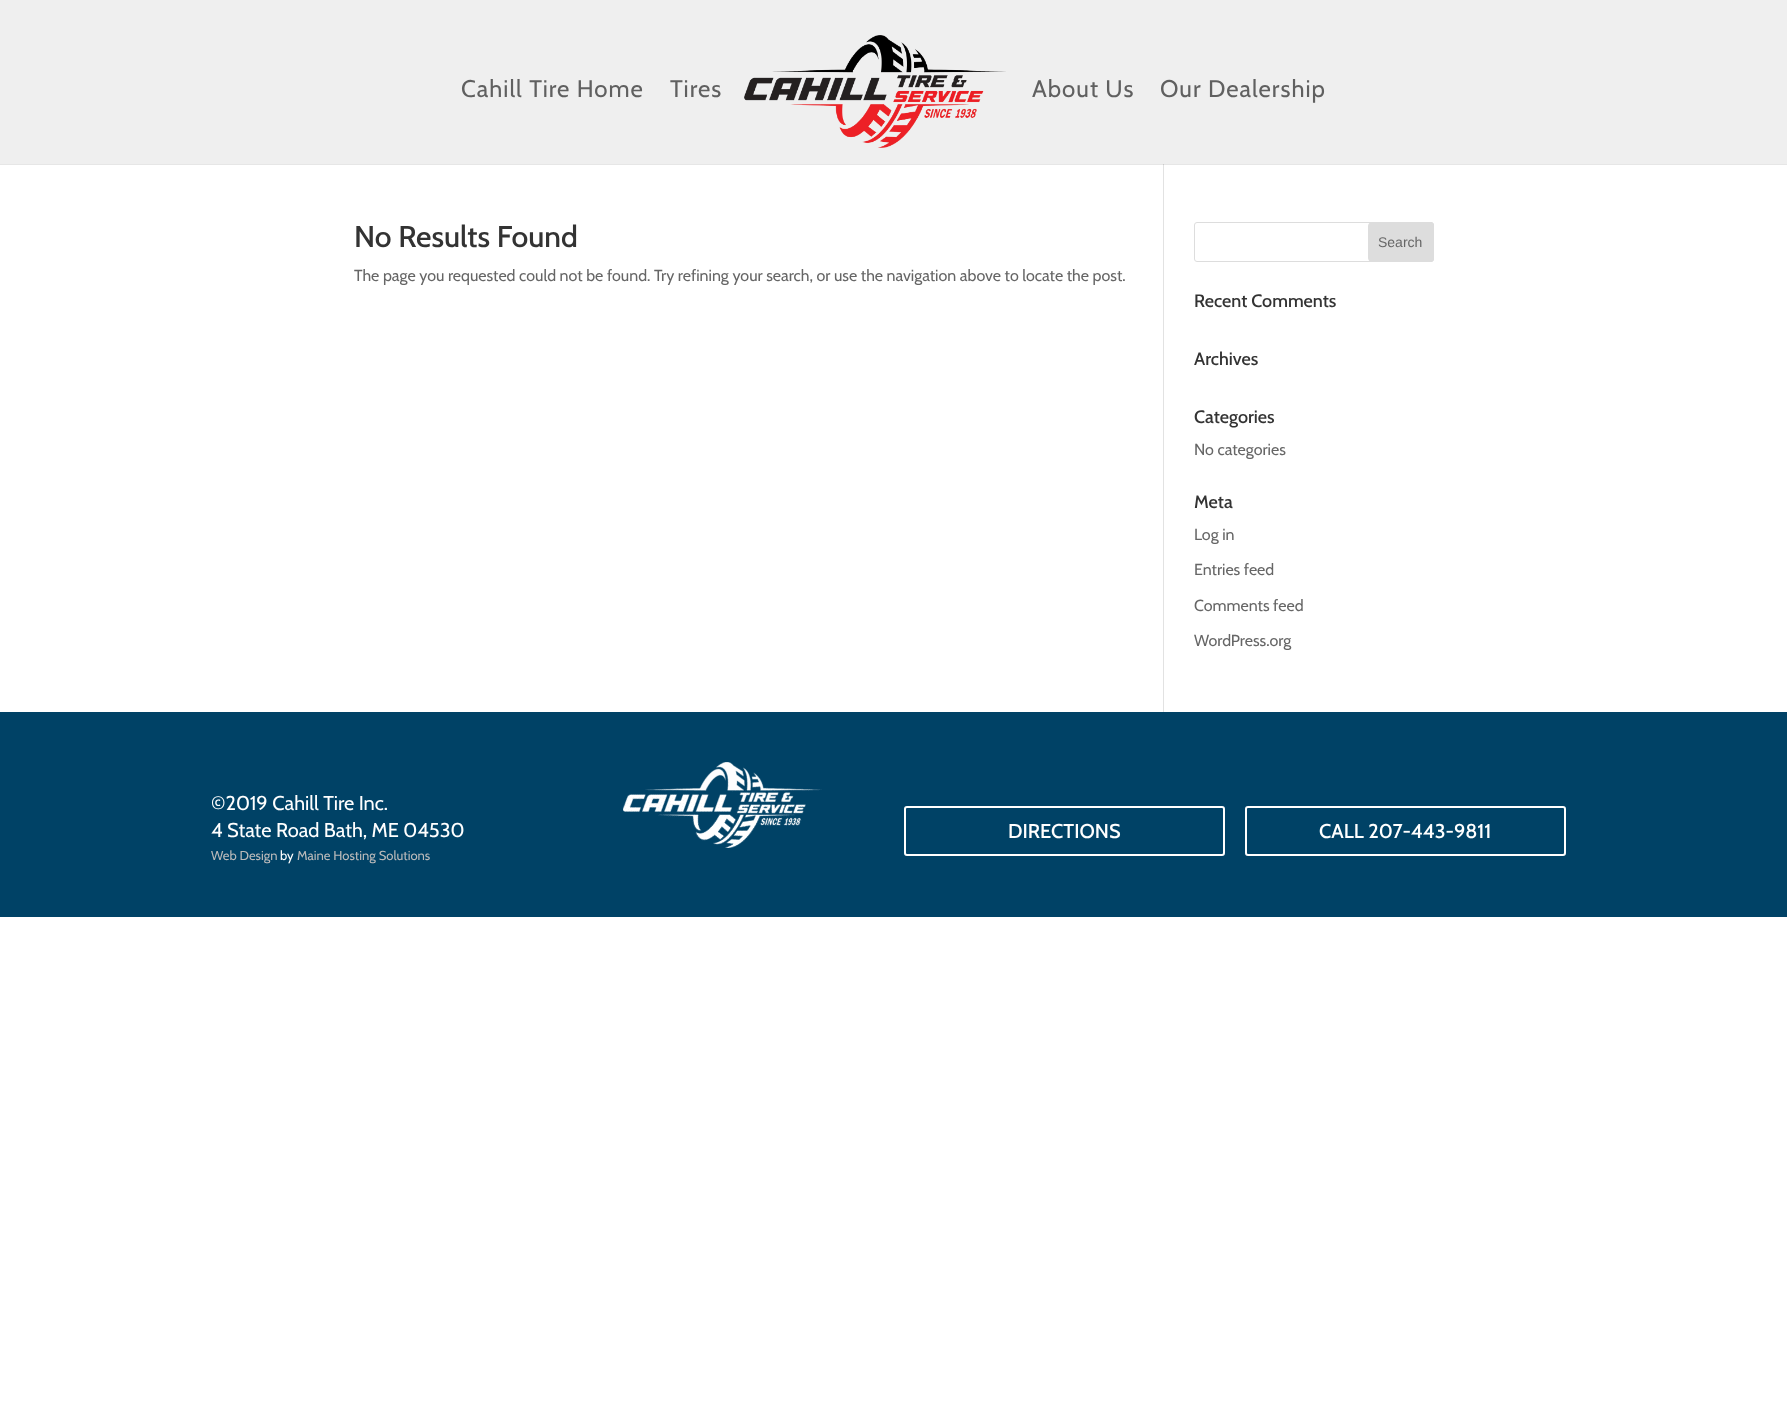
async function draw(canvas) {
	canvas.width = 1787;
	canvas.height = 1420;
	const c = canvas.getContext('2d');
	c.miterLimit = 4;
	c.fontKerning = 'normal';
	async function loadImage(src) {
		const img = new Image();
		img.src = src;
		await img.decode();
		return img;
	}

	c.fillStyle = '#fff';
	c.fillRect(0, 0, 1787, 1420);
	c.fillStyle = '#e6e6e6';
	c.fillRect(0, 164, 1787, 1);
	c.fillStyle = '#efefef';
	c.fillRect(0, 0, 1787, 164);
	c.letterSpacing = '1px';
	c.font = '24px Cabin';
	c.fillStyle = '#606060';
	c.fillText('Cahill Tire Home', 461, 97);
	c.fillText('Tires', 670, 97);
	c.drawImage(await loadImage('img1.png'), 744, 35, 262, 113);
	c.fillText('About Us', 1032, 97);
	c.fillText('Our Dealership', 1160, 97);
	c.fillStyle = '#e2e2e2';
	c.fillRect(1163, 164, 1, 548);
	c.fillStyle = '#cbcbcb';
	c.fillRect(1163, 164, 1, 1);
	c.letterSpacing = '0px';
	c.font = '500 30px Cabin';
	c.fillStyle = '#333';
	c.fillText('No Results Found', 354, 247);
	c.font = '16px Cabin';
	c.fillStyle = '#666';
	c.fillText('The page you requested could not be found. Try refining your search, or use the navigation above to locate the post.', 354, 281);
	c.beginPath();
	c.roundRect(1194.5, 222.5, 239, 39, 2.5);
	c.strokeStyle = '#ddd';
	c.stroke();
	c.fillStyle = '#ddd';
	c.beginPath();
	c.roundRect(1368.5, 222.5, 65, 39, [3.5, 2.5, 2.5, 3.5]);
	c.fill();
	c.stroke();
	c.font = '14px Liberation Sans';
	c.fillStyle = '#666';
	c.fillText('Search', 1378, 247);
	c.font = '500 18px Cabin';
	c.fillStyle = '#333';
	for (const [text, x, y] of [
		['Recent Comments', 1194, 307],
		['Archives', 1194, 365],
		['Categories', 1194, 423],
	]) {
		c.fillText(text, x, y);
	}
	c.font = '16px Cabin';
	c.fillStyle = '#666';
	c.fillText('No categories', 1194, 455);
	c.font = '500 18px Cabin';
	c.fillStyle = '#333';
	c.fillText('Meta', 1194, 508);
	c.font = '16px Cabin';
	c.fillStyle = '#666';
	for (const [text, x, y] of [
		['Log in', 1194, 540],
		['Entries feed', 1194, 575],
		['Comments feed', 1194, 611],
		['WordPress.org', 1194, 646],
	]) {
		c.fillText(text, x, y);
	}
	c.fillStyle = '#004266';
	c.fillRect(0, 712, 1787, 205);
	c.font = '20px Cabin';
	c.fillStyle = '#fff';
	c.fillText('©2019 Cahill Tire Inc.', 211, 810);
	c.fillText('4 State Road Bath, ME 04530', 211, 837);
	c.font = '13px Cabin';
	c.fillStyle = '#bababa';
	c.fillText('Web Design', 211, 860);
	c.fillStyle = '#fff';
	c.fillText('by', 280, 860);
	c.fillStyle = '#bababa';
	c.fillText('Maine Hosting Solutions', 297, 860);
	c.drawImage(await loadImage('img2.png'), 623, 762, 199, 86);
	c.beginPath();
	c.roundRect(905, 807, 319, 48, 2);
	c.strokeStyle = '#fff';
	c.lineWidth = 2;
	c.stroke();
	c.font = '500 20px Cabin';
	c.fillStyle = '#fff';
	c.fillText('DIRECTIONS', 1008, 838);
	c.beginPath();
	c.roundRect(1246, 807, 319, 48, 2);
	c.stroke();
	c.fillText('CALL 207-443-9811', 1319, 838);
}

draw(document.querySelector('canvas'));
